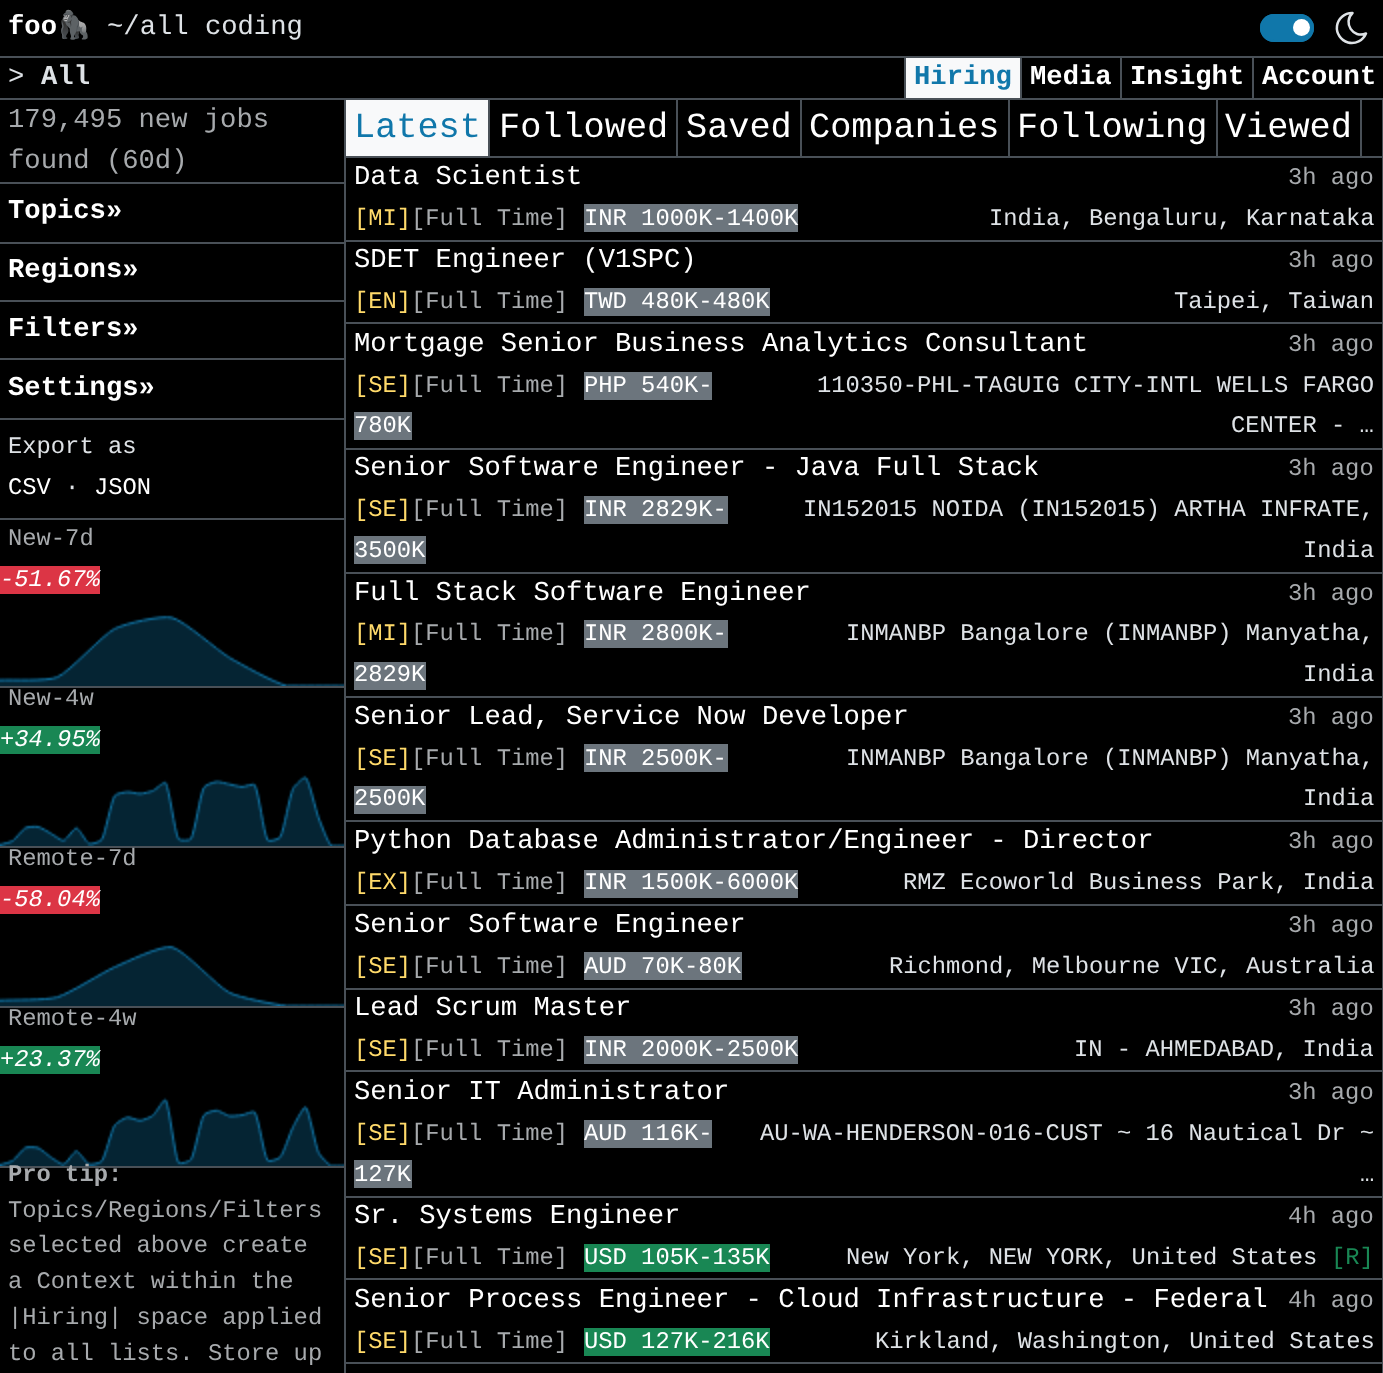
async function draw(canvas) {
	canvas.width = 1383;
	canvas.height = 1373;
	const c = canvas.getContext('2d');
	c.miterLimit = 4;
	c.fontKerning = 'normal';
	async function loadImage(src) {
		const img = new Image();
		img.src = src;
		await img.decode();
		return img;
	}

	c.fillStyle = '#000';
	c.fillRect(0, 0, 1383, 1373);
	c.fillStyle = '#495057';
	c.fillRect(0, 56, 1383, 2);
	c.font = 'bold 27.2px Liberation Mono';
	c.fillStyle = '#fff';
	c.fillText('foo', 8, 34);
	c.font = 'bold 27.2px Noto Color Emoji';
	c.fillText('🦍', 57, 34);
	c.font = '27.2px Liberation Mono';
	c.fillStyle = '#dee2e6';
	c.fillText('~/all coding', 107, 34);
	c.fillStyle = '#1077aa';
	c.beginPath();
	c.roundRect(1260, 14, 54, 28, 14);
	c.fill();
	c.fillStyle = '#fff';
	c.beginPath();
	c.arc(1301.5, 27.5, 8.5, 0, 2 * Math.PI);
	c.fill();
	c.beginPath();
	c.roundRect(1261, 15, 52, 26, 13);
	c.strokeStyle = '#1077aa';
	c.lineWidth = 2;
	c.stroke();
	c.beginPath();
	c.moveTo(1352, 13);
	c.lineTo(1352.5, 13);
	c.bezierCurveTo(1342.5, 22.5, 1353, 39, 1366, 33.5);
	c.bezierCurveTo(1363, 40.5, 1355.5, 44.5, 1348, 42.5);
	c.bezierCurveTo(1341, 40.5, 1336, 33.5, 1337, 26);
	c.bezierCurveTo(1338, 18.5, 1344.5, 13, 1352, 13);
	c.closePath();
	c.strokeStyle = '#dee2e6';
	c.lineWidth = 2.5;
	c.lineCap = 'round';
	c.lineJoin = 'round';
	c.stroke();
	c.fillStyle = '#495057';
	c.fillRect(0, 98, 1383, 2);
	c.fillStyle = '#dee2e6';
	c.fillText('>', 8, 84);
	c.font = 'bold 27.2px Liberation Mono';
	c.fillText('All', 41, 84);
	c.fillStyle = '#f8f9fa';
	c.fillRect(906, 58, 114, 40);
	c.fillStyle = '#495057';
	c.fillRect(904, 58, 2, 40);
	c.fillStyle = '#1077aa';
	c.fillText('Hiring', 914, 84);
	c.fillStyle = '#495057';
	c.fillRect(1020, 58, 2, 40);
	c.fillStyle = '#fff';
	c.fillText('Media', 1030, 84);
	c.fillStyle = '#495057';
	c.fillRect(1120, 58, 2, 40);
	c.fillStyle = '#fff';
	c.fillText('Insight', 1130, 84);
	c.fillStyle = '#495057';
	c.fillRect(1252, 58, 2, 40);
	c.fillStyle = '#fff';
	c.fillText('Account', 1262, 84);
	c.fillStyle = '#495057';
	c.fillRect(344, 100, 2, 1273);
	c.fillRect(0, 182, 344, 2);
	c.font = '27.2px Liberation Mono';
	c.fillStyle = '#a7aaad';
	c.fillText('179,495 new jobs', 8, 127);
	c.fillText('found (60d)', 8, 168);
	c.fillStyle = '#495057';
	c.fillRect(0, 242, 344, 2);
	c.font = 'bold 27.2px Liberation Mono';
	c.fillStyle = '#fff';
	c.fillText('Topics»', 8, 218);
	c.fillStyle = '#495057';
	c.fillRect(0, 300, 344, 2);
	c.fillStyle = '#fff';
	c.fillText('Regions»', 8, 277);
	c.fillStyle = '#495057';
	c.fillRect(0, 358, 344, 2);
	c.fillStyle = '#fff';
	c.fillText('Filters»', 8, 336);
	c.fillStyle = '#495057';
	c.fillRect(0, 418, 344, 2);
	c.fillStyle = '#fff';
	c.fillText('Settings»', 8, 395);
	c.fillStyle = '#495057';
	c.fillRect(0, 518, 344, 2);
	c.font = '23.8px Liberation Mono';
	c.fillStyle = '#dee2e6';
	c.fillText('Export as', 8, 453);
	c.fillStyle = '#fff';
	c.fillText('CSV', 8, 494);
	c.fillStyle = '#dee2e6';
	c.fillText('·', 65, 494);
	c.fillStyle = '#fff';
	c.fillText('JSON', 94, 494);
	c.fillStyle = '#a7aaad';
	c.fillText('New-7d', 8, 545);
	c.fillStyle = '#dc3545';
	c.fillRect(0, 566, 100, 28);
	c.font = 'italic 23.8px Liberation Mono';
	c.fillStyle = '#fff';
	c.fillText('-51.67%', 0, 586);
	c.fillStyle = '#495057';
	c.fillRect(0, 686, 344, 2);
	c.drawImage(await loadImage('img1.png'), 0, 615, 344, 71);
	c.font = '23.8px Liberation Mono';
	c.fillStyle = '#a7aaad';
	c.fillText('New-4w', 8, 705);
	c.fillStyle = '#198754';
	c.fillRect(0, 726, 100, 28);
	c.font = 'italic 23.8px Liberation Mono';
	c.fillStyle = '#fff';
	c.fillText('+34.95%', 0, 746);
	c.fillStyle = '#495057';
	c.fillRect(0, 846, 344, 2);
	c.drawImage(await loadImage('img2.png'), 0, 775, 344, 71);
	c.font = '23.8px Liberation Mono';
	c.fillStyle = '#a7aaad';
	c.fillText('Remote-7d', 8, 865);
	c.fillStyle = '#dc3545';
	c.fillRect(0, 886, 100, 28);
	c.font = 'italic 23.8px Liberation Mono';
	c.fillStyle = '#fff';
	c.fillText('-58.04%', 0, 906);
	c.fillStyle = '#495057';
	c.fillRect(0, 1006, 344, 2);
	c.drawImage(await loadImage('img3.png'), 0, 945, 344, 61);
	c.font = '23.8px Liberation Mono';
	c.fillStyle = '#a7aaad';
	c.fillText('Remote-4w', 8, 1025);
	c.fillStyle = '#198754';
	c.fillRect(0, 1046, 100, 28);
	c.font = 'italic 23.8px Liberation Mono';
	c.fillStyle = '#fff';
	c.fillText('+23.37%', 0, 1066);
	c.fillStyle = '#495057';
	c.fillRect(0, 1166, 344, 2);
	c.drawImage(await loadImage('img4.png'), 0, 1097, 344, 69);
	c.font = 'bold 23.8px Liberation Mono';
	c.fillStyle = '#a7aaad';
	c.fillText('Pro tip:', 8, 1181);
	c.font = '23.8px Liberation Mono';
	for (const [text, x, y] of [
		['Topics/Regions/Filters', 8, 1217],
		['selected above create', 8, 1252],
		['a Context within the', 8, 1288],
		['|Hiring| space applied', 8, 1324],
		['to all lists. Store up', 8, 1360],
	]) {
		c.fillText(text, x, y);
	}
	for (const [x, y, w, h, color] of [
		[1382, 100, 1, 1273, '#495057'],
		[346, 156, 1036, 2, '#495057'],
		[346, 100, 142, 56, '#f8f9fa'],
		[488, 100, 2, 56, '#495057'],
	]) {
		c.fillStyle = color;
		c.fillRect(x, y, w, h);
	}
	c.font = '35.25px Liberation Mono';
	c.fillStyle = '#1077aa';
	c.fillText('Latest', 354, 137);
	c.fillStyle = '#495057';
	c.fillRect(676, 100, 2, 56);
	c.fillStyle = '#fff';
	c.fillText('Followed', 499, 137);
	c.fillStyle = '#495057';
	c.fillRect(800, 100, 2, 56);
	c.fillStyle = '#fff';
	c.fillText('Saved', 686, 137);
	c.fillStyle = '#495057';
	c.fillRect(1008, 100, 2, 56);
	c.fillStyle = '#fff';
	c.fillText('Companies', 809, 137);
	c.fillStyle = '#495057';
	c.fillRect(1216, 100, 2, 56);
	c.fillStyle = '#fff';
	c.fillText('Following', 1017, 137);
	c.fillStyle = '#495057';
	c.fillRect(1360, 100, 2, 56);
	c.fillStyle = '#fff';
	c.fillText('Viewed', 1225, 137);
	c.fillStyle = '#495057';
	c.fillRect(346, 240, 1036, 2);
	c.font = '27.2px Liberation Mono';
	c.fillStyle = '#fff';
	c.fillText('Data Scientist', 354, 184);
	c.font = '23.8px Liberation Mono';
	c.fillStyle = '#a7aaad';
	c.fillText('3h ago', 1288, 184);
	c.fillStyle = '#ffda6a';
	c.fillText('[MI]', 354, 225);
	c.fillStyle = '#a7aaad';
	c.fillText('[Full Time]', 411, 225);
	c.fillStyle = '#6c757d';
	c.fillRect(584, 204, 214, 28);
	c.fillStyle = '#fff';
	c.fillText('INR 1000K-1400K', 584, 225);
	c.fillStyle = '#dee2e6';
	c.fillText('India, Bengaluru, Karnataka', 989, 225);
	c.fillStyle = '#495057';
	c.fillRect(346, 322, 1036, 2);
	c.font = '27.2px Liberation Mono';
	c.fillStyle = '#fff';
	c.fillText('SDET Engineer (V1SPC)', 354, 267);
	c.font = '23.8px Liberation Mono';
	c.fillStyle = '#a7aaad';
	c.fillText('3h ago', 1288, 267);
	c.fillStyle = '#ffda6a';
	c.fillText('[EN]', 354, 308);
	c.fillStyle = '#a7aaad';
	c.fillText('[Full Time]', 411, 308);
	c.fillStyle = '#6c757d';
	c.fillRect(584, 288, 186, 28);
	c.fillStyle = '#fff';
	c.fillText('TWD 480K-480K', 584, 308);
	c.fillStyle = '#dee2e6';
	c.fillText('Taipei, Taiwan', 1174, 308);
	c.fillStyle = '#495057';
	c.fillRect(346, 448, 1036, 2);
	c.font = '27.2px Liberation Mono';
	c.fillStyle = '#fff';
	c.fillText('Mortgage Senior Business Analytics Consultant', 354, 351);
	c.font = '23.8px Liberation Mono';
	c.fillStyle = '#a7aaad';
	c.fillText('3h ago', 1288, 351);
	c.fillStyle = '#ffda6a';
	c.fillText('[SE]', 354, 392);
	c.fillStyle = '#a7aaad';
	c.fillText('[Full Time]', 411, 392);
	c.fillStyle = '#6c757d';
	c.fillRect(584, 372, 128, 28);
	c.fillStyle = '#fff';
	c.fillText('PHP 540K-', 584, 392);
	c.fillStyle = '#6c757d';
	c.fillRect(354, 412, 58, 28);
	c.fillStyle = '#fff';
	c.fillText('780K', 354, 432);
	c.fillStyle = '#dee2e6';
	c.fillText('110350-PHL-TAGUIG CITY-INTL WELLS FARGO', 817, 392);
	c.fillText('CENTER - …', 1231, 432);
	c.fillStyle = '#495057';
	c.fillRect(346, 572, 1036, 2);
	c.font = '27.2px Liberation Mono';
	c.fillStyle = '#fff';
	c.fillText('Senior Software Engineer - Java Full Stack', 354, 475);
	c.font = '23.8px Liberation Mono';
	c.fillStyle = '#a7aaad';
	c.fillText('3h ago', 1288, 475);
	c.fillStyle = '#ffda6a';
	c.fillText('[SE]', 354, 516);
	c.fillStyle = '#a7aaad';
	c.fillText('[Full Time]', 411, 516);
	c.fillStyle = '#6c757d';
	c.fillRect(584, 496, 144, 28);
	c.fillStyle = '#fff';
	c.fillText('INR 2829K-', 584, 516);
	c.fillStyle = '#6c757d';
	c.fillRect(354, 536, 72, 28);
	c.fillStyle = '#fff';
	c.fillText('3500K', 354, 557);
	c.fillStyle = '#dee2e6';
	c.fillText('IN152015 NOIDA (IN152015) ARTHA INFRATE,', 803, 516);
	c.fillText('India', 1303, 557);
	c.fillStyle = '#495057';
	c.fillRect(346, 696, 1036, 2);
	c.font = '27.2px Liberation Mono';
	c.fillStyle = '#fff';
	c.fillText('Full Stack Software Engineer', 354, 600);
	c.font = '23.8px Liberation Mono';
	c.fillStyle = '#a7aaad';
	c.fillText('3h ago', 1288, 600);
	c.fillStyle = '#ffda6a';
	c.fillText('[MI]', 354, 640);
	c.fillStyle = '#a7aaad';
	c.fillText('[Full Time]', 411, 640);
	c.fillStyle = '#6c757d';
	c.fillRect(584, 620, 144, 28);
	c.fillStyle = '#fff';
	c.fillText('INR 2800K-', 584, 640);
	c.fillStyle = '#6c757d';
	c.fillRect(354, 662, 72, 28);
	c.fillStyle = '#fff';
	c.fillText('2829K', 354, 681);
	c.fillStyle = '#dee2e6';
	c.fillText('INMANBP Bangalore (INMANBP) Manyatha,', 846, 640);
	c.fillText('India', 1303, 681);
	c.fillStyle = '#495057';
	c.fillRect(346, 820, 1036, 2);
	c.font = '27.2px Liberation Mono';
	c.fillStyle = '#fff';
	c.fillText('Senior Lead, Service Now Developer', 354, 724);
	c.font = '23.8px Liberation Mono';
	c.fillStyle = '#a7aaad';
	c.fillText('3h ago', 1288, 724);
	c.fillStyle = '#ffda6a';
	c.fillText('[SE]', 354, 765);
	c.fillStyle = '#a7aaad';
	c.fillText('[Full Time]', 411, 765);
	c.fillStyle = '#6c757d';
	c.fillRect(584, 744, 144, 28);
	c.fillStyle = '#fff';
	c.fillText('INR 2500K-', 584, 765);
	c.fillStyle = '#6c757d';
	c.fillRect(354, 786, 72, 28);
	c.fillStyle = '#fff';
	c.fillText('2500K', 354, 805);
	c.fillStyle = '#dee2e6';
	c.fillText('INMANBP Bangalore (INMANBP) Manyatha,', 846, 765);
	c.fillText('India', 1303, 805);
	c.fillStyle = '#495057';
	c.fillRect(346, 904, 1036, 2);
	c.font = '27.2px Liberation Mono';
	c.fillStyle = '#fff';
	c.fillText('Python Database Administrator/Engineer - Director', 354, 848);
	c.font = '23.8px Liberation Mono';
	c.fillStyle = '#a7aaad';
	c.fillText('3h ago', 1288, 848);
	c.fillStyle = '#ffda6a';
	c.fillText('[EX]', 354, 889);
	c.fillStyle = '#a7aaad';
	c.fillText('[Full Time]', 411, 889);
	c.fillStyle = '#6c757d';
	c.fillRect(584, 870, 214, 28);
	c.fillStyle = '#fff';
	c.fillText('INR 1500K-6000K', 584, 889);
	c.fillStyle = '#dee2e6';
	c.fillText('RMZ Ecoworld Business Park, India', 903, 889);
	c.fillStyle = '#495057';
	c.fillRect(346, 988, 1036, 2);
	c.font = '27.2px Liberation Mono';
	c.fillStyle = '#fff';
	c.fillText('Senior Software Engineer', 354, 932);
	c.font = '23.8px Liberation Mono';
	c.fillStyle = '#a7aaad';
	c.fillText('3h ago', 1288, 932);
	c.fillStyle = '#ffda6a';
	c.fillText('[SE]', 354, 973);
	c.fillStyle = '#a7aaad';
	c.fillText('[Full Time]', 411, 973);
	c.fillStyle = '#6c757d';
	c.fillRect(584, 952, 158, 28);
	c.fillStyle = '#fff';
	c.fillText('AUD 70K-80K', 584, 973);
	c.fillStyle = '#dee2e6';
	c.fillText('Richmond, Melbourne VIC, Australia', 889, 973);
	c.fillStyle = '#495057';
	c.fillRect(346, 1070, 1036, 2);
	c.font = '27.2px Liberation Mono';
	c.fillStyle = '#fff';
	c.fillText('Lead Scrum Master', 354, 1015);
	c.font = '23.8px Liberation Mono';
	c.fillStyle = '#a7aaad';
	c.fillText('3h ago', 1288, 1015);
	c.fillStyle = '#ffda6a';
	c.fillText('[SE]', 354, 1056);
	c.fillStyle = '#a7aaad';
	c.fillText('[Full Time]', 411, 1056);
	c.fillStyle = '#6c757d';
	c.fillRect(584, 1036, 214, 28);
	c.fillStyle = '#fff';
	c.fillText('INR 2000K-2500K', 584, 1056);
	c.fillStyle = '#dee2e6';
	c.fillText('IN - AHMEDABAD, India', 1074, 1056);
	c.fillStyle = '#495057';
	c.fillRect(346, 1196, 1036, 2);
	c.font = '27.2px Liberation Mono';
	c.fillStyle = '#fff';
	c.fillText('Senior IT Administrator', 354, 1099);
	c.font = '23.8px Liberation Mono';
	c.fillStyle = '#a7aaad';
	c.fillText('3h ago', 1288, 1099);
	c.fillStyle = '#ffda6a';
	c.fillText('[SE]', 354, 1140);
	c.fillStyle = '#a7aaad';
	c.fillText('[Full Time]', 411, 1140);
	c.fillStyle = '#6c757d';
	c.fillRect(584, 1120, 128, 28);
	c.fillStyle = '#fff';
	c.fillText('AUD 116K-', 584, 1140);
	c.fillStyle = '#6c757d';
	c.fillRect(354, 1160, 58, 28);
	c.fillStyle = '#fff';
	c.fillText('127K', 354, 1181);
	c.fillStyle = '#dee2e6';
	c.fillText('AU-WA-HENDERSON-016-CUST ~ 16 Nautical Dr ~', 760, 1140);
	c.fillText('…', 1360, 1181);
	c.fillStyle = '#495057';
	c.fillRect(346, 1278, 1036, 2);
	c.font = '27.2px Liberation Mono';
	c.fillStyle = '#fff';
	c.fillText('Sr. Systems Engineer', 354, 1223);
	c.font = '23.8px Liberation Mono';
	c.fillStyle = '#a7aaad';
	c.fillText('4h ago', 1288, 1223);
	c.fillStyle = '#ffda6a';
	c.fillText('[SE]', 354, 1264);
	c.fillStyle = '#a7aaad';
	c.fillText('[Full Time]', 411, 1264);
	c.fillStyle = '#198754';
	c.fillRect(584, 1244, 186, 28);
	c.fillStyle = '#fff';
	c.fillText('USD 105K-135K', 584, 1264);
	c.fillStyle = '#dee2e6';
	c.fillText('New York, NEW YORK, United States', 846, 1264);
	c.fillStyle = '#198754';
	c.fillText('[R]', 1331, 1264);
	c.fillStyle = '#495057';
	c.fillRect(346, 1362, 1036, 2);
	c.font = '27.2px Liberation Mono';
	c.fillStyle = '#fff';
	c.fillText('Senior Process Engineer - Cloud Infrastructure - Federal', 354, 1307);
	c.font = '23.8px Liberation Mono';
	c.fillStyle = '#a7aaad';
	c.fillText('4h ago', 1288, 1307);
	c.fillStyle = '#ffda6a';
	c.fillText('[SE]', 354, 1348);
	c.fillStyle = '#a7aaad';
	c.fillText('[Full Time]', 411, 1348);
	c.fillStyle = '#198754';
	c.fillRect(584, 1328, 186, 28);
	c.fillStyle = '#fff';
	c.fillText('USD 127K-216K', 584, 1348);
	c.fillStyle = '#dee2e6';
	c.fillText('Kirkland, Washington, United States', 875, 1348);
}

draw(document.querySelector('canvas'));
